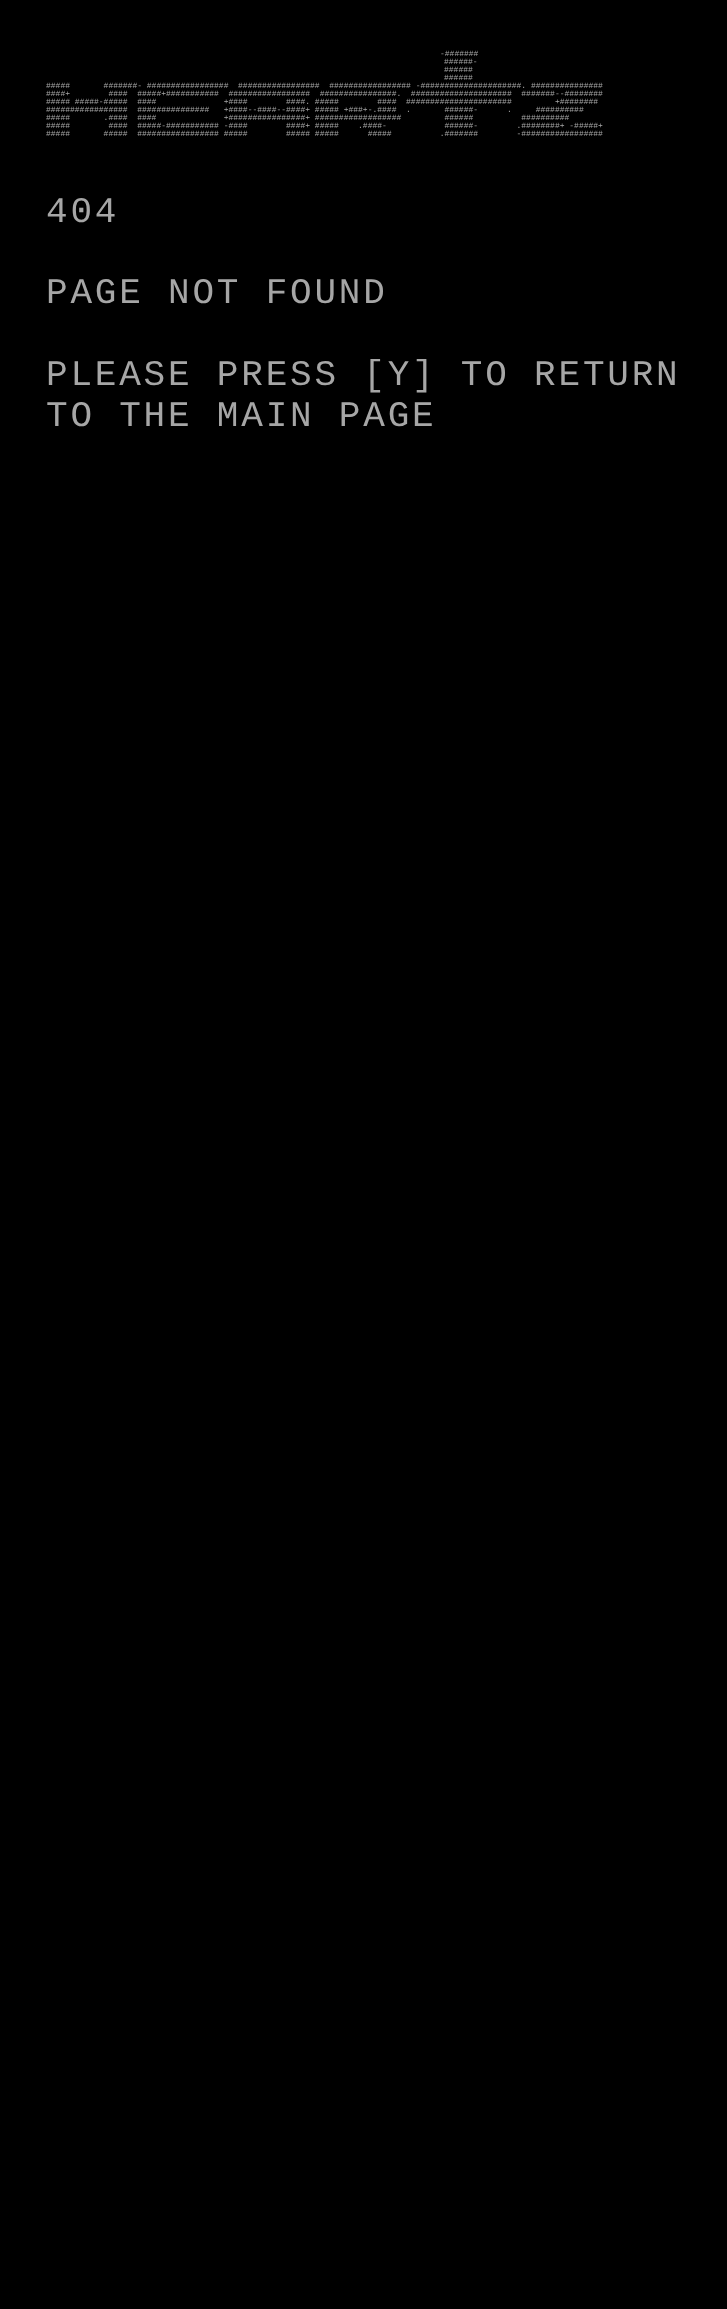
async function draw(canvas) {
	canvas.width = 727;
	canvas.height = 2309;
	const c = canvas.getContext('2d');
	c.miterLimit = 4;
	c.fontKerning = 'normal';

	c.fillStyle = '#000';
	c.fillRect(0, 0, 727, 2309);
	c.font = '8px Liberation Mono';
	c.fillStyle = '#a6a6a6';
	for (const [text, x, y] of [
		['-#######', 440, 56],
		['######-', 444, 64],
		['######', 444, 72],
		['######', 444, 80],
		['#####       #######- #################  #################  ################# -#####################. ###############', 46, 88],
		['####+        ####  #####+###########  #################  ################.  #####################  #######--########', 46, 96],
		['##### #####-#####  ####              +####        ####. #####        ####  ######################         +########', 46, 104],
		['#################  ###############   +####--####--####+ ##### +###+-.####  .       ######-      .     ##########', 46, 112],
		['#####       .####  ####              +################+ ##################         ######          ##########', 46, 120],
		['#####        ####  #####-########### -####        ####+ #####    .####-            ######-        .########+ -#####+', 46, 128],
		['#####       #####  ################# #####        ##### #####      #####          .#######        -#################', 46, 136],
	]) {
		c.fillText(text, x, y);
	}
	c.letterSpacing = '2.8px';
	c.font = '36px Liberation Mono';
	for (const [text, x, y] of [
		['404', 46, 222],
		['PAGE NOT FOUND', 46, 303],
		['PLEASE PRESS [Y] TO RETURN', 46, 385],
		['TO THE MAIN PAGE', 46, 426],
	]) {
		c.fillText(text, x, y);
	}
}

draw(document.querySelector('canvas'));
